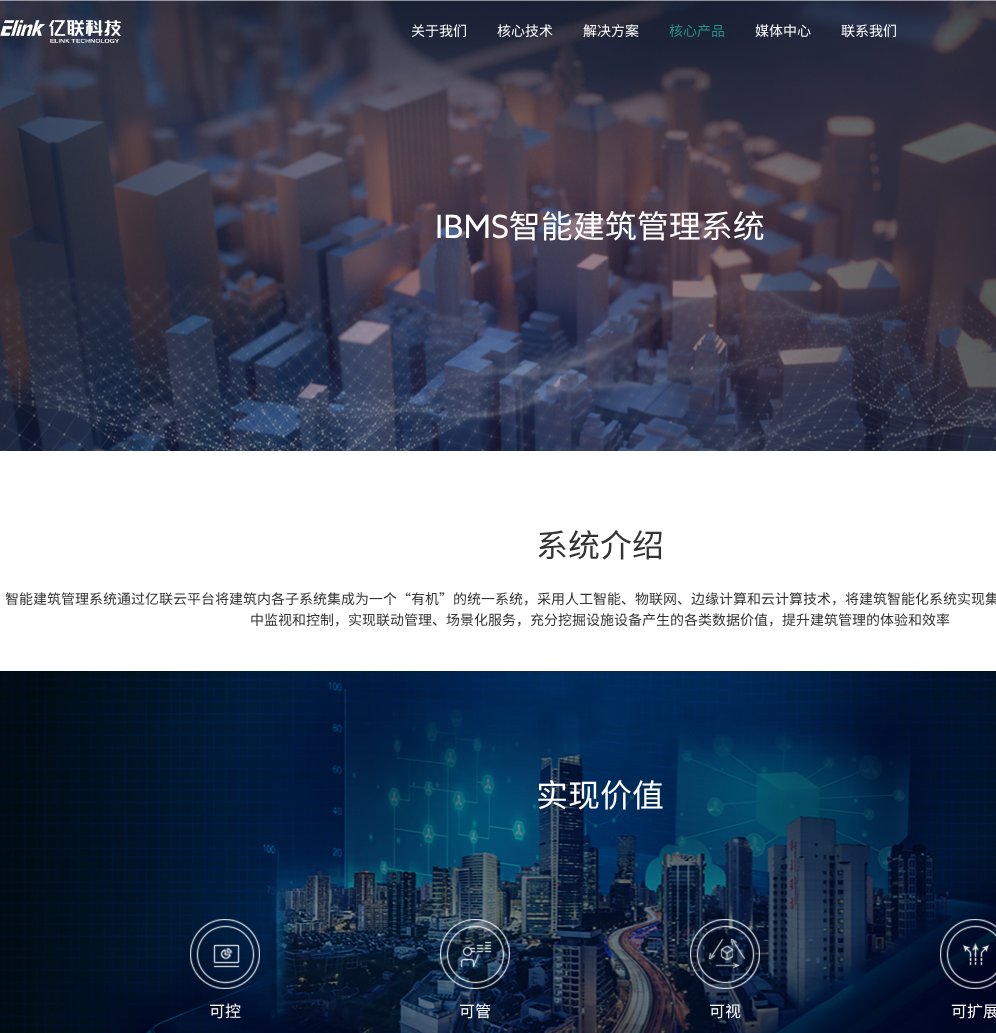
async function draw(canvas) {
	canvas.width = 996;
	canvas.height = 1033;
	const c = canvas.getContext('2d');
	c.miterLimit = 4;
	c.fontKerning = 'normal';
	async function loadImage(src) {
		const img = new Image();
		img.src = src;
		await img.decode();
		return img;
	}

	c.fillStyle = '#fff';
	c.fillRect(0, 0, 996, 1033);
	c.drawImage(await loadImage('img2.png'), 0, 0, 996, 451);
	c.drawImage(await loadImage('img1.png'), 0, 20, 121, 23);
	c.font = '14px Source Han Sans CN';
	for (const [text, x, y] of [
		['关于我们', 411, 36],
		['核心技术', 497, 36],
		['解决方案', 583, 36],
	]) {
		c.fillText(text, x, y);
	}
	c.fillStyle = '#27918d';
	c.fillText('核心产品', 669, 36);
	c.fillStyle = '#fff';
	c.fillText('媒体中心', 755, 36);
	c.fillText('联系我们', 841, 36);
	c.font = '32px Source Han Sans CN';
	c.fillText('IBMS智能建筑管理系统', 435, 238);
	c.fillStyle = '#333';
	c.fillText('系统介绍', 536, 557);
	c.font = '14px Source Han Sans CN';
	c.fillText('智能建筑管理系统通过亿联云平台将建筑内各子系统集成为一个“有机”的统一系统，采用人工智能、物联网、边缘计算和云计算技术，将建筑智能化系统实现集', 5, 604);
	c.fillText('中监视和控制，实现联动管理、场景化服务，充分挖掘设施设备产生的各类数据价值，提升建筑管理的体验和效率', 250, 625);
	c.drawImage(await loadImage('img3.png'), 0, 671, 996, 362);
	c.font = '32px Source Han Sans CN';
	c.fillStyle = '#fff';
	c.fillText('实现价值', 536, 807);
	c.drawImage(await loadImage('img4.png'), 190, 919, 70, 70);
	c.font = '16px Source Han Sans CN';
	c.fillText('可控', 209, 1017);
	c.drawImage(await loadImage('img5.png'), 440, 919, 70, 70);
	c.fillText('可管', 459, 1017);
	c.drawImage(await loadImage('img6.png'), 690, 919, 70, 70);
	c.fillText('可视', 709, 1017);
	c.drawImage(await loadImage('img7.png'), 940, 919, 56, 70);
	c.fillText('可扩展', 951, 1017);
}

draw(document.querySelector('canvas'));
